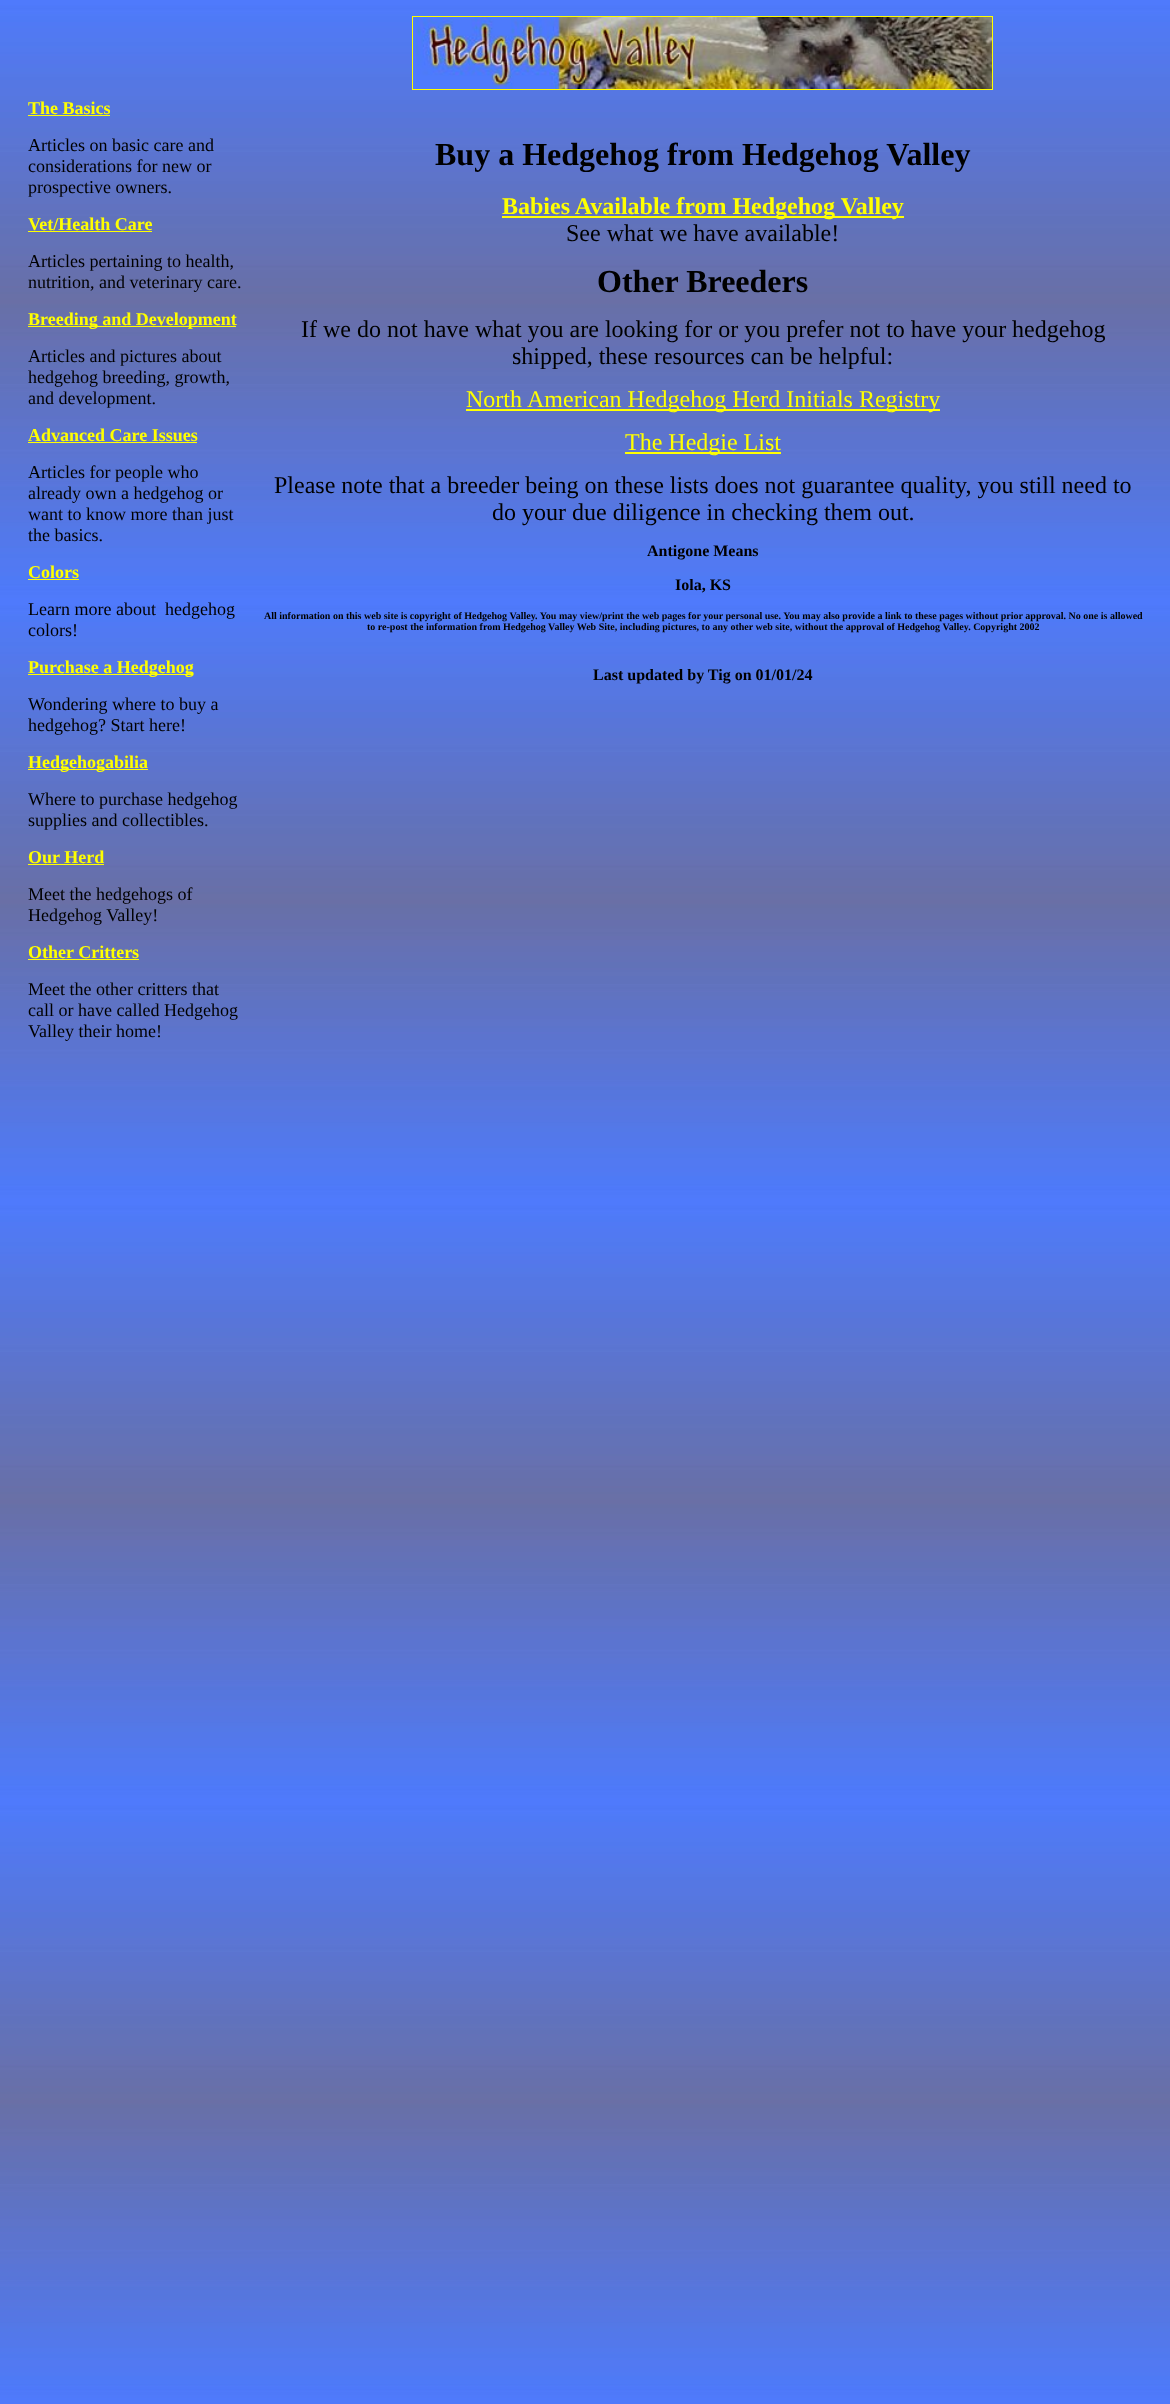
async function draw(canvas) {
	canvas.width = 1170;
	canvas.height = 2404;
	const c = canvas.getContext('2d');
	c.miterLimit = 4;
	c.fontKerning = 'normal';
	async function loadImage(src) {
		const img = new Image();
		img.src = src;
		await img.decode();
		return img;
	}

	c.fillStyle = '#fff';
	c.fillRect(0, 0, 1170, 2404);
	c.drawImage(await loadImage('img1.png'), 0, 0, 1170, 2404);
	c.strokeStyle = '#ff0';
	c.strokeRect(412.5, 16.5, 580, 73);
	c.drawImage(await loadImage('img2.png'), 413, 17, 579, 72);
	c.font = 'bold 18px Liberation Serif';
	c.fillStyle = '#ff0';
	c.fillText('The Basics', 28, 114);
	c.fillRect(28, 115, 82, 1);
	c.font = '18px Liberation Serif';
	c.fillStyle = '#000';
	for (const [text, x, y] of [
		['Articles on basic care and', 28, 151],
		['considerations for new or', 28, 172],
		['prospective owners.', 28, 193],
	]) {
		c.fillText(text, x, y);
	}
	c.font = 'bold 18px Liberation Serif';
	c.fillStyle = '#ff0';
	c.fillText('Vet/Health Care', 28, 230);
	c.fillRect(28, 231, 124, 1);
	c.font = '18px Liberation Serif';
	c.fillStyle = '#000';
	c.fillText('Articles pertaining to health,', 28, 267);
	c.fillText('nutrition, and veterinary care.', 28, 288);
	c.fillStyle = '#ff0';
	c.fillRect(28, 326, 208, 1);
	c.font = 'bold 18px Liberation Serif';
	c.fillText('Breeding and Development', 28, 325);
	c.font = '18px Liberation Serif';
	c.fillStyle = '#000';
	for (const [text, x, y] of [
		['Articles and pictures about', 28, 362],
		['hedgehog breeding, growth,', 28, 383],
		['and development.', 28, 404],
	]) {
		c.fillText(text, x, y);
	}
	c.font = 'bold 18px Liberation Serif';
	c.fillStyle = '#ff0';
	c.fillText('Advanced Care Issues', 28, 441);
	c.fillRect(28, 442, 169, 1);
	c.font = '18px Liberation Serif';
	c.fillStyle = '#000';
	for (const [text, x, y] of [
		['Articles for people who', 28, 478],
		['already own a hedgehog or', 28, 499],
		['want to know more than just', 28, 520],
		['the basics.', 28, 541],
	]) {
		c.fillText(text, x, y);
	}
	c.font = 'bold 18px Liberation Serif';
	c.fillStyle = '#ff0';
	c.fillText('Colors', 28, 578);
	c.fillRect(28, 579, 51, 1);
	c.font = '18px Liberation Serif';
	c.fillStyle = '#000';
	c.fillText('Learn more about  hedgehog', 28, 615);
	c.fillText('colors!', 28, 636);
	c.fillStyle = '#ff0';
	c.fillRect(28, 674, 165, 1);
	c.font = 'bold 18px Liberation Serif';
	c.fillText('Purchase a Hedgehog', 28, 673);
	c.font = '18px Liberation Serif';
	c.fillStyle = '#000';
	c.fillText('Wondering where to buy a', 28, 710);
	c.fillText('hedgehog? Start here!', 28, 731);
	c.fillStyle = '#ff0';
	c.fillRect(28, 769, 120, 1);
	c.font = 'bold 18px Liberation Serif';
	c.fillText('Hedgehogabilia', 28, 768);
	c.font = '18px Liberation Serif';
	c.fillStyle = '#000';
	c.fillText('Where to purchase hedgehog', 28, 805);
	c.fillText('supplies and collectibles.', 28, 826);
	c.font = 'bold 18px Liberation Serif';
	c.fillStyle = '#ff0';
	c.fillText('Our Herd', 28, 863);
	c.fillRect(28, 864, 76, 1);
	c.font = '18px Liberation Serif';
	c.fillStyle = '#000';
	c.fillText('Meet the hedgehogs of', 28, 900);
	c.fillText('Hedgehog Valley!', 28, 921);
	c.font = 'bold 18px Liberation Serif';
	c.fillStyle = '#ff0';
	c.fillText('Other Critters', 28, 958);
	c.fillRect(28, 959, 111, 1);
	c.font = '18px Liberation Serif';
	c.fillStyle = '#000';
	for (const [text, x, y] of [
		['Meet the other critters that', 28, 995],
		['call or have called Hedgehog', 28, 1016],
		['Valley their home!', 28, 1037],
	]) {
		c.fillText(text, x, y);
	}
	c.font = 'bold 32px Liberation Serif';
	c.fillText('Buy a Hedgehog from Hedgehog Valley', 435, 165);
	c.fillStyle = '#ff0';
	c.fillRect(502, 216, 402, 2);
	c.font = 'bold 24px Liberation Serif';
	c.fillText('Babies Available from Hedgehog Valley', 502, 214);
	c.font = '24px Liberation Serif';
	c.fillStyle = '#000';
	c.fillText('See what we have available!', 566, 241);
	c.font = 'bold 32px Liberation Serif';
	c.fillText('Other Breeders', 597, 292);
	c.font = '24px Liberation Serif';
	c.fillText('If we do not have what you are looking for or you prefer not to have your hedgehog', 301, 337);
	c.fillText('shipped, these resources can be helpful:', 512, 364);
	c.fillStyle = '#ff0';
	c.fillText('North', 466, 407);
	c.fillRect(466, 409, 474, 2);
	c.fillText('American Hedgehog Herd Initials Registry', 527, 407);
	c.fillRect(625, 452, 156, 2);
	c.fillText('The Hedgie List', 625, 450);
	c.fillStyle = '#000';
	c.fillText('Please note that a breeder being on these lists does not guarantee quality, you still need to', 274, 493);
	c.fillText('do your due diligence in checking them out.', 492, 520);
	c.font = 'bold 16px Liberation Serif';
	c.fillText('Antigone Means', 647, 556);
	c.fillText('Iola, KS', 675, 590);
	c.font = 'bold 10px Liberation Serif';
	c.fillText('All information on this web site is copyright of Hedgehog Valley. You may view/print the web pages for your personal use. You may also provide a link to these pages without prior approval. No one is allowed', 264, 619);
	c.fillText('to re-post the information from Hedgehog Valley Web Site, including pictures, to any other web site, without the approval of Hedgehog Valley. Copyright 2002', 367, 630);
	c.font = 'bold 16px Liberation Serif';
	c.fillText('Last updated by Tig on 01/01/24', 593, 680);
}

draw(document.querySelector('canvas'));
